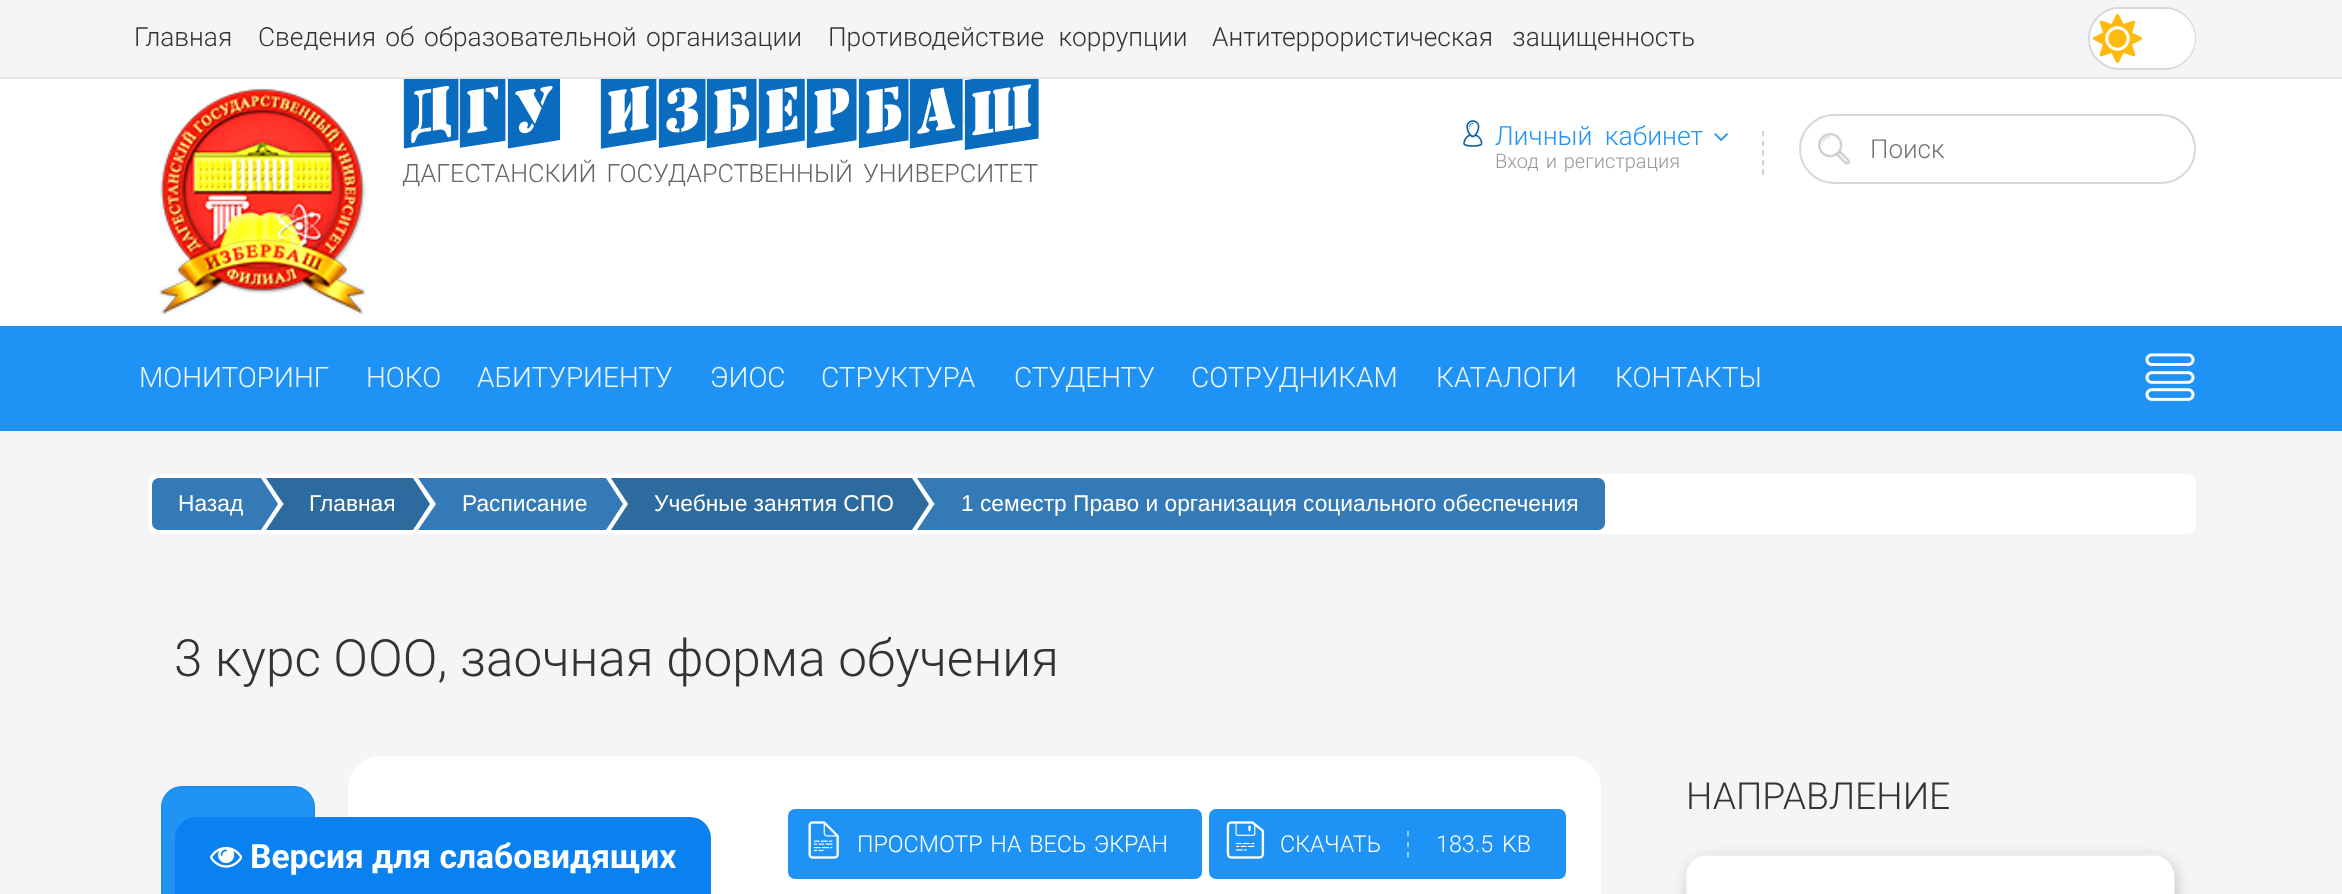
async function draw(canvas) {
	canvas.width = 2342;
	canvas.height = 894;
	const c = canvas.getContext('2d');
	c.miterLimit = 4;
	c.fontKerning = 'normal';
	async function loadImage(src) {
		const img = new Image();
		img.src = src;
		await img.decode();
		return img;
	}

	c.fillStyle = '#f5f5f7';
	c.fillRect(0, 0, 2342, 894);
	c.fillStyle = '#e6e6e8';
	c.fillRect(0, 77, 2342, 2);
	c.font = '300 26.3px Roboto';
	c.fillStyle = '#333';
	c.fillText('Главная', 134, 46);
	c.wordSpacing = '3px';
	c.fillText('Сведения об образовательной организации', 258, 46);
	c.wordSpacing = '8px';
	c.fillText('Противодействие коррупции', 828, 46);
	c.wordSpacing = '13px';
	c.fillText('Антитеррористическая защищенность', 1212, 46);
	c.beginPath();
	c.roundRect(2089, 8, 106, 61, 30.5);
	c.strokeStyle = '#d8d8d8';
	c.lineWidth = 2;
	c.stroke();
	c.fillStyle = '#fff';
	c.beginPath();
	c.roundRect(2090, 9, 105, 59, 29.5);
	c.fill();
	c.drawImage(await loadImage('img1.png'), 2093, 14, 49, 49);
	c.fillRect(0, 79, 2342, 247);
	c.drawImage(await loadImage('img2.png'), 159, 88, 207, 227);
	c.save();
	c.beginPath();
	c.rect(403, 79, 57, 80);
	c.clip();
	c.wordSpacing = '0px';
	c.font = '63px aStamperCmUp';
	c.fillStyle = '#096cbe';
	c.fillText('Д', 402, 131);
	c.restore();
	c.save();
	c.beginPath();
	c.rect(459, 79, 49, 80);
	c.clip();
	c.wordSpacing = '0px';
	c.font = '63px aStamperCmUp';
	c.fillStyle = '#096cbe';
	c.fillText('Г', 458, 131);
	c.restore();
	c.save();
	c.beginPath();
	c.rect(506, 79, 56, 80);
	c.clip();
	c.wordSpacing = '0px';
	c.font = '63px aStamperCmUp';
	c.fillStyle = '#096cbe';
	c.fillText('У', 506, 131);
	c.restore();
	c.save();
	c.beginPath();
	c.rect(599, 79, 59, 80);
	c.clip();
	c.wordSpacing = '0px';
	c.font = '63px aStamperCmUp';
	c.fillStyle = '#096cbe';
	c.fillText('И', 599, 131);
	c.restore();
	c.save();
	c.beginPath();
	c.rect(656, 79, 51, 80);
	c.clip();
	c.wordSpacing = '0px';
	c.font = '63px aStamperCmUp';
	c.fillStyle = '#096cbe';
	c.fillText('З', 657, 131);
	c.restore();
	c.save();
	c.beginPath();
	c.rect(705, 79, 55, 80);
	c.clip();
	c.wordSpacing = '0px';
	c.font = '63px aStamperCmUp';
	c.fillStyle = '#096cbe';
	c.fillText('Б', 705, 131);
	c.restore();
	c.save();
	c.beginPath();
	c.rect(758, 79, 49, 80);
	c.clip();
	c.wordSpacing = '0px';
	c.font = '63px aStamperCmUp';
	c.fillStyle = '#096cbe';
	c.fillText('Е', 757, 131);
	c.restore();
	c.save();
	c.beginPath();
	c.rect(805, 79, 54, 80);
	c.clip();
	c.wordSpacing = '0px';
	c.font = '63px aStamperCmUp';
	c.fillStyle = '#096cbe';
	c.fillText('Р', 805, 131);
	c.restore();
	c.save();
	c.beginPath();
	c.rect(858, 79, 52, 80);
	c.clip();
	c.wordSpacing = '0px';
	c.font = '63px aStamperCmUp';
	c.fillStyle = '#096cbe';
	c.fillText('Б', 857, 131);
	c.restore();
	c.save();
	c.beginPath();
	c.rect(908, 79, 56, 80);
	c.clip();
	c.wordSpacing = '0px';
	c.font = '63px aStamperCmUp';
	c.fillStyle = '#096cbe';
	c.fillText('А', 908, 131);
	c.restore();
	c.fillStyle = '#eee';
	c.fillRect(963, 114, 1, 10);
	c.save();
	c.beginPath();
	c.rect(963, 79, 78, 80);
	c.clip();
	c.wordSpacing = '0px';
	c.font = '63px aStamperCmUp';
	c.fillStyle = '#096cbe';
	c.fillText('Ш', 963, 131);
	c.restore();
	c.wordSpacing = '4px';
	c.font = '300 25.2px Roboto';
	c.fillStyle = '#666';
	c.fillText('ДАГЕСТАНСКИЙ ГОСУДАРСТВЕННЫЙ УНИВЕРСИТЕТ', 402, 182);
	c.drawImage(await loadImage('img3.png'), 1463, 120, 20, 27);
	c.wordSpacing = '6px';
	c.font = '300 26.5px Roboto';
	c.fillStyle = '#1f94f5';
	c.fillText('Личный кабинет', 1495, 145);
	c.drawImage(await loadImage('img4.png'), 1714, 133, 14, 9);
	c.beginPath();
	c.moveTo(1763, 131);
	c.lineTo(1763, 175);
	c.strokeStyle = '#ccc';
	c.lineWidth = 1.8;
	c.setLineDash([5.25, 4.38]);
	c.stroke();
	c.wordSpacing = '2px';
	c.font = '300 20px Roboto';
	c.fillStyle = '#999';
	c.fillText('Вход и регистрация', 1495, 168);
	c.beginPath();
	c.roundRect(1800, 115, 395, 68, 34);
	c.strokeStyle = '#d8d8d8';
	c.lineWidth = 2;
	c.setLineDash([]);
	c.stroke();
	c.drawImage(await loadImage('img5.png'), 1818, 132, 33, 33);
	c.wordSpacing = '0px';
	c.font = '300 26px Roboto';
	c.fillStyle = '#757575';
	c.fillText('Поиск', 1870, 158);
	c.fillStyle = '#1f93f5';
	c.fillRect(0, 326, 2342, 105);
	c.font = '300 28px Roboto';
	c.fillStyle = '#e9f4fe';
	for (const [text, x, y] of [
		['МОНИТОРИНГ', 139, 387],
		['НОКО', 366, 387],
		['АБИТУРИЕНТУ', 477, 387],
		['ЭИОС', 710, 387],
		['СТРУКТУРА', 821, 387],
		['СТУДЕНТУ', 1014, 387],
		['СОТРУДНИКАМ', 1191, 387],
		['КАТАЛОГИ', 1436, 387],
		['КОНТАКТЫ', 1615, 387],
	]) {
		c.fillText(text, x, y);
	}
	c.drawImage(await loadImage('img6.png'), 2145, 353, 50, 48);
	c.fillStyle = '#fff';
	c.beginPath();
	c.roundRect(149, 474, 2047, 60, 7);
	c.fill();
	c.fillStyle = '#337ab7';
	c.beginPath();
	c.roundRect(152, 478, 109, 52, [7, 0, 0, 7]);
	c.fill();
	c.font = '22.75px Liberation Sans';
	c.fillStyle = '#fff';
	c.fillText('Назад', 178, 511);
	c.fillStyle = '#337ab7';
	c.beginPath();
	c.moveTo(261, 530);
	c.lineTo(261, 478);
	c.lineTo(278, 504);
	c.closePath();
	c.fill();
	c.fillStyle = '#2d6b9f';
	c.fillRect(301, 478, 112, 52);
	c.beginPath();
	c.moveTo(266, 478);
	c.lineTo(301, 478);
	c.lineTo(283.5, 504);
	c.closePath();
	c.fill();
	c.fillRect(284, 478, 17, 52);
	c.beginPath();
	c.moveTo(301, 530);
	c.lineTo(266, 530);
	c.lineTo(283.5, 504);
	c.closePath();
	c.fill();
	c.fillStyle = '#fff';
	c.fillText('Главная', 309, 511);
	c.fillStyle = '#2d6b9f';
	c.beginPath();
	c.moveTo(413, 530);
	c.lineTo(413, 478);
	c.lineTo(430, 504);
	c.closePath();
	c.fill();
	c.fillStyle = '#337ab7';
	c.fillRect(453, 478, 153, 52);
	c.beginPath();
	c.moveTo(418, 478);
	c.lineTo(453, 478);
	c.lineTo(436, 504);
	c.closePath();
	c.fill();
	c.fillRect(436, 478, 17, 52);
	c.beginPath();
	c.moveTo(453, 530);
	c.lineTo(418, 530);
	c.lineTo(436, 504);
	c.closePath();
	c.fill();
	c.fillStyle = '#fff';
	c.fillText('Расписание', 462, 511);
	c.fillStyle = '#337ab7';
	c.beginPath();
	c.moveTo(606, 530);
	c.lineTo(606, 478);
	c.lineTo(623, 504);
	c.closePath();
	c.fill();
	c.fillStyle = '#2d6b9f';
	c.fillRect(646, 478, 266, 52);
	c.beginPath();
	c.moveTo(611, 478);
	c.lineTo(646, 478);
	c.lineTo(628, 504);
	c.closePath();
	c.fill();
	c.fillRect(628, 478, 18, 52);
	c.beginPath();
	c.moveTo(646, 530);
	c.lineTo(611, 530);
	c.lineTo(628, 504);
	c.closePath();
	c.fill();
	c.fillStyle = '#fff';
	c.fillText('Учебные занятия СПО', 654, 511);
	c.fillStyle = '#2d6b9f';
	c.beginPath();
	c.moveTo(912, 530);
	c.lineTo(912, 478);
	c.lineTo(929, 504);
	c.closePath();
	c.fill();
	c.fillStyle = '#337ab7';
	c.beginPath();
	c.roundRect(952, 478, 653, 52, [0, 7, 7, 0]);
	c.fill();
	c.beginPath();
	c.moveTo(917, 478);
	c.lineTo(952, 478);
	c.lineTo(934.5, 504);
	c.closePath();
	c.fill();
	c.fillRect(935, 478, 17, 52);
	c.beginPath();
	c.moveTo(952, 530);
	c.lineTo(917, 530);
	c.lineTo(934.5, 504);
	c.closePath();
	c.fill();
	c.fillStyle = '#fff';
	c.fillText('1 семестр Право и организация социального обеспечения', 961, 511);
	c.font = '300 51.3px Roboto';
	c.fillStyle = '#333';
	c.fillText('3 курс ООО, заочная форма обучения', 174, 676);
	c.font = '300 37.25px Roboto';
	c.fillText('НАПРАВЛЕНИЕ', 1686, 809);
	c.fillStyle = '#00000033';
	c.filter = 'blur(7px)';
	c.beginPath();
	c.roundRect(1687, 858, 490, 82, 25);
	c.fill();
	c.filter = 'none';
	c.fillStyle = '#fff';
	c.beginPath();
	c.roundRect(1685, 854, 490, 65, 25);
	c.fill();
	c.save();
	c.beginPath();
	c.roundRect(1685, 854, 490, 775, 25);
	c.clip();
	c.fillStyle = '#00000033';
	c.filter = 'blur(26px)';
	c.beginPath();
	c.rect(1687, 865, 487, 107);
	c.fill();
	c.filter = 'none';
	c.restore();
	c.save();
	c.beginPath();
	c.roundRect(1685, 854, 490, 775, 25);
	c.clip();
	c.fillRect(1687, 856, 487, 38);
	c.restore();
	c.fillStyle = '#1f94f5';
	c.beginPath();
	c.roundRect(161, 786, 154, 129, 21);
	c.fill();
	c.fillStyle = '#0000000d';
	c.beginPath();
	c.moveTo(182, 786);
	c.bezierCurveTo(170, 786, 161, 795, 161, 807);
	c.lineTo(161, 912);
	c.bezierCurveTo(161, 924, 170, 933, 182, 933);
	c.lineTo(294, 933);
	c.bezierCurveTo(306, 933, 315, 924, 315, 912);
	c.lineTo(315, 807);
	c.bezierCurveTo(315, 795, 306, 786, 294, 786);
	c.closePath();
	c.moveTo(179, 788);
	c.bezierCurveTo(170, 788, 163, 795, 163, 804);
	c.lineTo(163, 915);
	c.bezierCurveTo(163, 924, 170, 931, 179, 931);
	c.lineTo(297, 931);
	c.bezierCurveTo(306, 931, 313, 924, 313, 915);
	c.lineTo(313, 804);
	c.bezierCurveTo(313, 795, 306, 788, 297, 788);
	c.closePath();
	c.fill('evenodd');
	c.fillStyle = '#fff';
	c.beginPath();
	c.roundRect(348, 756, 1253, 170, 32);
	c.fill();
	c.fillStyle = '#1f93f5';
	c.beginPath();
	c.roundRect(788, 809, 414, 70, 7);
	c.fill();
	c.drawImage(await loadImage('img7.png'), 808, 821, 31, 38);
	c.wordSpacing = '2px';
	c.font = '300 23.3px Roboto';
	c.fillStyle = '#fff';
	c.fillText('ПРОСМОТР НА ВЕСЬ ЭКРАН', 857, 852);
	c.fillStyle = '#1f93f5';
	c.beginPath();
	c.roundRect(1209, 809, 357, 70, 7);
	c.fill();
	c.drawImage(await loadImage('img8.png'), 1226, 821, 39, 38);
	c.wordSpacing = '0px';
	c.fillStyle = '#fff';
	c.fillText('СКАЧАТЬ', 1280, 852);
	c.wordSpacing = '3px';
	c.fillText('183.5 KB', 1436, 852);
	c.beginPath();
	c.moveTo(1408, 831);
	c.lineTo(1408, 836.5);
	c.moveTo(1408, 842);
	c.lineTo(1408, 847);
	c.moveTo(1408, 852);
	c.lineTo(1408, 857.5);
	c.strokeStyle = '#a5d4fb';
	c.lineWidth = 1.8;
	c.stroke();
	c.fillStyle = '#0981f0';
	c.beginPath();
	c.roundRect(175, 817, 536, 77, [21, 21, 0, 0]);
	c.fill();
	c.drawImage(await loadImage('img9.png'), 210, 846, 32, 22);
	c.wordSpacing = '0px';
	c.font = 'bold 33.6px Roboto';
	c.fillStyle = '#fff';
	c.fillText('Версия для слабовидящих', 250, 868);
}

draw(document.querySelector('canvas'));
